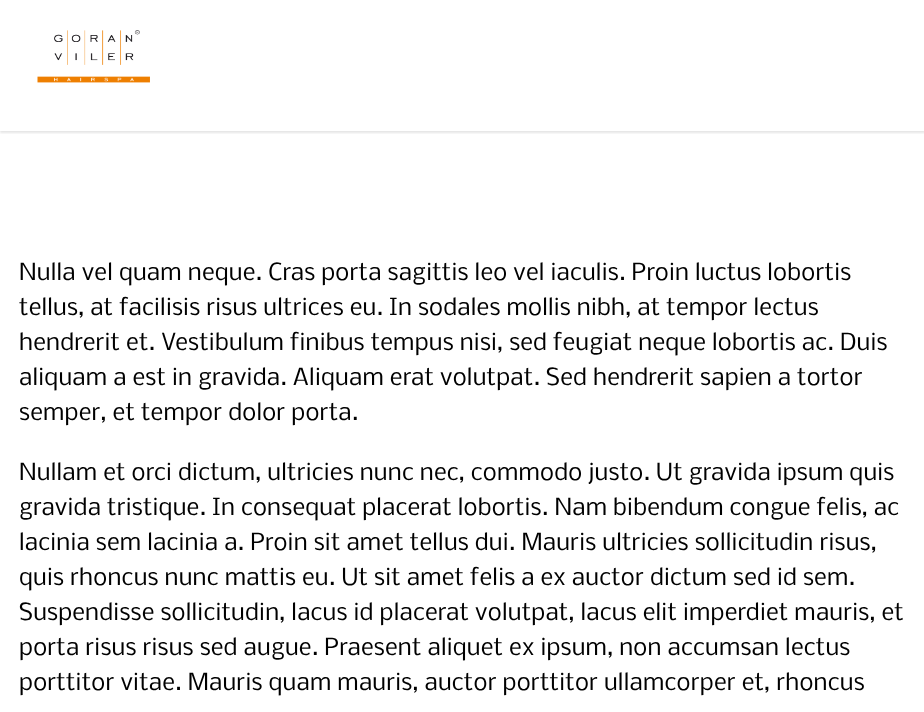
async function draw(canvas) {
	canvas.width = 924;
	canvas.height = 712;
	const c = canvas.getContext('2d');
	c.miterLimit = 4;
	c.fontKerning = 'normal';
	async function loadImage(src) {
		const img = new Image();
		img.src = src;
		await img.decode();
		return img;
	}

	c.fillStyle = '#fff';
	c.fillRect(0, 0, 924, 712);
	c.save();
	c.beginPath();
	c.rect(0, 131, 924, 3);
	c.clip();
	c.fillStyle = '#0000001a';
	c.filter = 'blur(1px)';
	c.beginPath();
	c.rect(0, 1, 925, 132);
	c.fill();
	c.filter = 'none';
	c.restore();
	c.drawImage(await loadImage('img1.png'), 37, 30, 113, 53);
	c.letterSpacing = '0.25px';
	c.font = '22.5px Nobile';
	c.fillStyle = '#000';
	for (const [text, x, y] of [
		['Nulla vel quam neque. Cras porta sagittis leo vel iaculis. Proin luctus lobortis', 19, 280],
		['tellus, at facilisis risus ultrices eu. In sodales mollis nibh, at tempor lectus', 19, 315],
		['hendrerit et. Vestibulum finibus tempus nisi, sed feugiat neque lobortis ac. Duis', 19, 350],
		['aliquam a est in gravida. Aliquam erat volutpat. Sed hendrerit sapien a tortor', 19, 385],
		['semper, et tempor dolor porta.', 19, 420],
		['Nullam et orci dictum, ultricies nunc nec, commodo justo. Ut gravida ipsum quis', 19, 480],
		['gravida tristique. In consequat placerat lobortis. Nam bibendum congue felis, ac', 19, 515],
		['lacinia sem lacinia a. Proin sit amet tellus dui. Mauris ultricies sollicitudin risus,', 19, 550],
		['quis rhoncus nunc mattis eu. Ut sit amet felis a ex auctor dictum sed id sem.', 19, 585],
		['Suspendisse sollicitudin, lacus id placerat volutpat, lacus elit imperdiet mauris, et', 19, 620],
		['porta risus risus sed augue. Praesent aliquet ex ipsum, non accumsan lectus', 19, 655],
		['porttitor vitae. Mauris quam mauris, auctor porttitor ullamcorper et, rhoncus', 19, 690],
	]) {
		c.fillText(text, x, y);
	}
}

draw(document.querySelector('canvas'));
